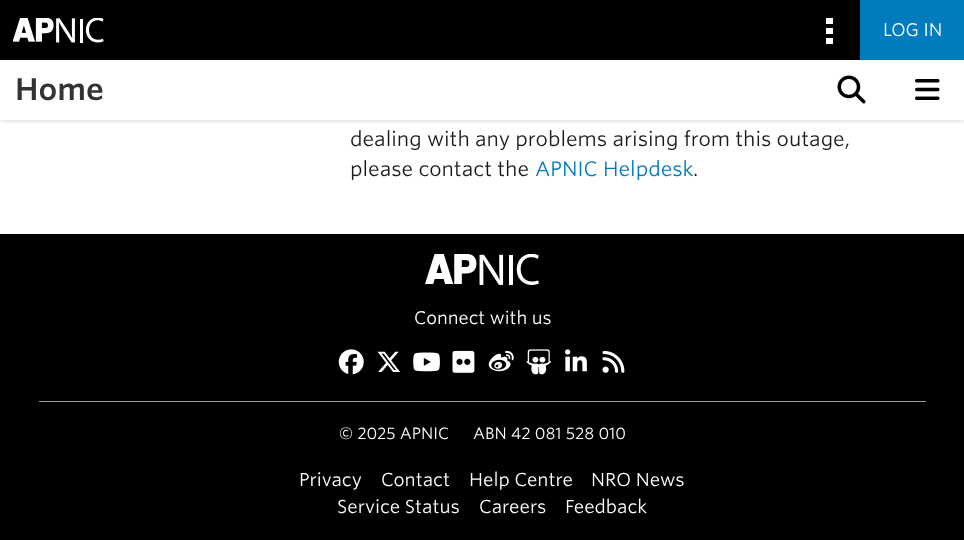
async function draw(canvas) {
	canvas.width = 964;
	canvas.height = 540;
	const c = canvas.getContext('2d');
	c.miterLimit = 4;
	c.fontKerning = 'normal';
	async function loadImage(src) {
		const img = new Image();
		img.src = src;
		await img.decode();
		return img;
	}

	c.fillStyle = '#fff';
	c.fillRect(0, 0, 964, 540);
	c.fillStyle = '#000';
	c.fillRect(0, 0, 860, 60);
	c.drawImage(await loadImage('img1.png'), 13, 18, 91, 25);
	for (const [x, y, w, h, color] of [
		[826, 18, 7, 6, '#fff'],
		[826, 28, 7, 6, '#fff'],
		[826, 38, 7, 6, '#fff'],
	]) {
		c.fillStyle = color;
		c.fillRect(x, y, w, h);
	}
	c.fillStyle = '#00000026';
	c.filter = 'blur(2px)';
	c.beginPath();
	c.rect(0, 61, 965, 60);
	c.fill();
	c.filter = 'none';
	c.fillStyle = '#007bbd';
	c.fillRect(860, 0, 104, 60);
	c.font = '300 17.5px "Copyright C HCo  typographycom"';
	c.fillStyle = '#fff';
	c.fillText('LOG IN', 883, 36);
	c.fillRect(0, 60, 964, 60);
	c.font = '30px "Copyright C HCo  typographycom"';
	c.fillStyle = '#333';
	c.fillText('Home', 15, 100);
	c.drawImage(await loadImage('img2.png'), 837, 75, 29, 29);
	c.drawImage(await loadImage('img3.png'), 915, 79, 25, 21);
	c.font = '300 20px "Copyright C HCo  typographycom"';
	c.fillStyle = '#1a1a1a';
	c.fillText('dealing with any problems arising from this outage,', 350, 146);
	c.fillText('please contact the', 350, 176);
	c.fillStyle = '#007bbd';
	c.fillText('APNIC Helpdesk', 535, 176);
	c.fillStyle = '#1a1a1a';
	c.fillText('.', 693, 176);
	c.fillStyle = '#000';
	c.fillRect(0, 234, 964, 306);
	c.drawImage(await loadImage('img4.png'), 425, 254, 114, 31);
	c.font = '300 17.5px "Copyright C HCo  typographycom"';
	c.fillStyle = '#fff';
	c.fillText('Connect with us', 414, 324);
	c.drawImage(await loadImage('img5.png'), 338, 349, 26, 26);
	c.drawImage(await loadImage('img6.png'), 377, 351, 23, 21);
	c.drawImage(await loadImage('img7.png'), 413, 352, 27, 20);
	c.drawImage(await loadImage('img8.png'), 452, 350, 23, 23);
	c.drawImage(await loadImage('img9.png'), 488, 350, 26, 22);
	c.drawImage(await loadImage('img10.png'), 526, 349, 25, 26);
	c.drawImage(await loadImage('img11.png'), 565, 349, 22, 23);
	c.drawImage(await loadImage('img12.png'), 602, 350, 23, 23);
	c.fillStyle = '#999';
	c.fillRect(39, 401, 887, 1);
	c.font = '300 15.75px "Copyright C HCo  typographycom"';
	c.fillStyle = '#fff';
	c.fillText('© 2025 APNIC', 339, 439);
	c.fillText('ABN 42 081 528 010', 473, 439);
	c.font = '300 18px "Copyright C HCo  typographycom"';
	for (const [text, x, y] of [
		['Privacy', 299, 486],
		['Contact', 381, 486],
		['Help Centre', 469, 486],
		['NRO News', 591, 486],
		['Service Status', 337, 513],
		['Careers', 479, 513],
		['Feedback', 565, 513],
	]) {
		c.fillText(text, x, y);
	}
}

draw(document.querySelector('canvas'));
